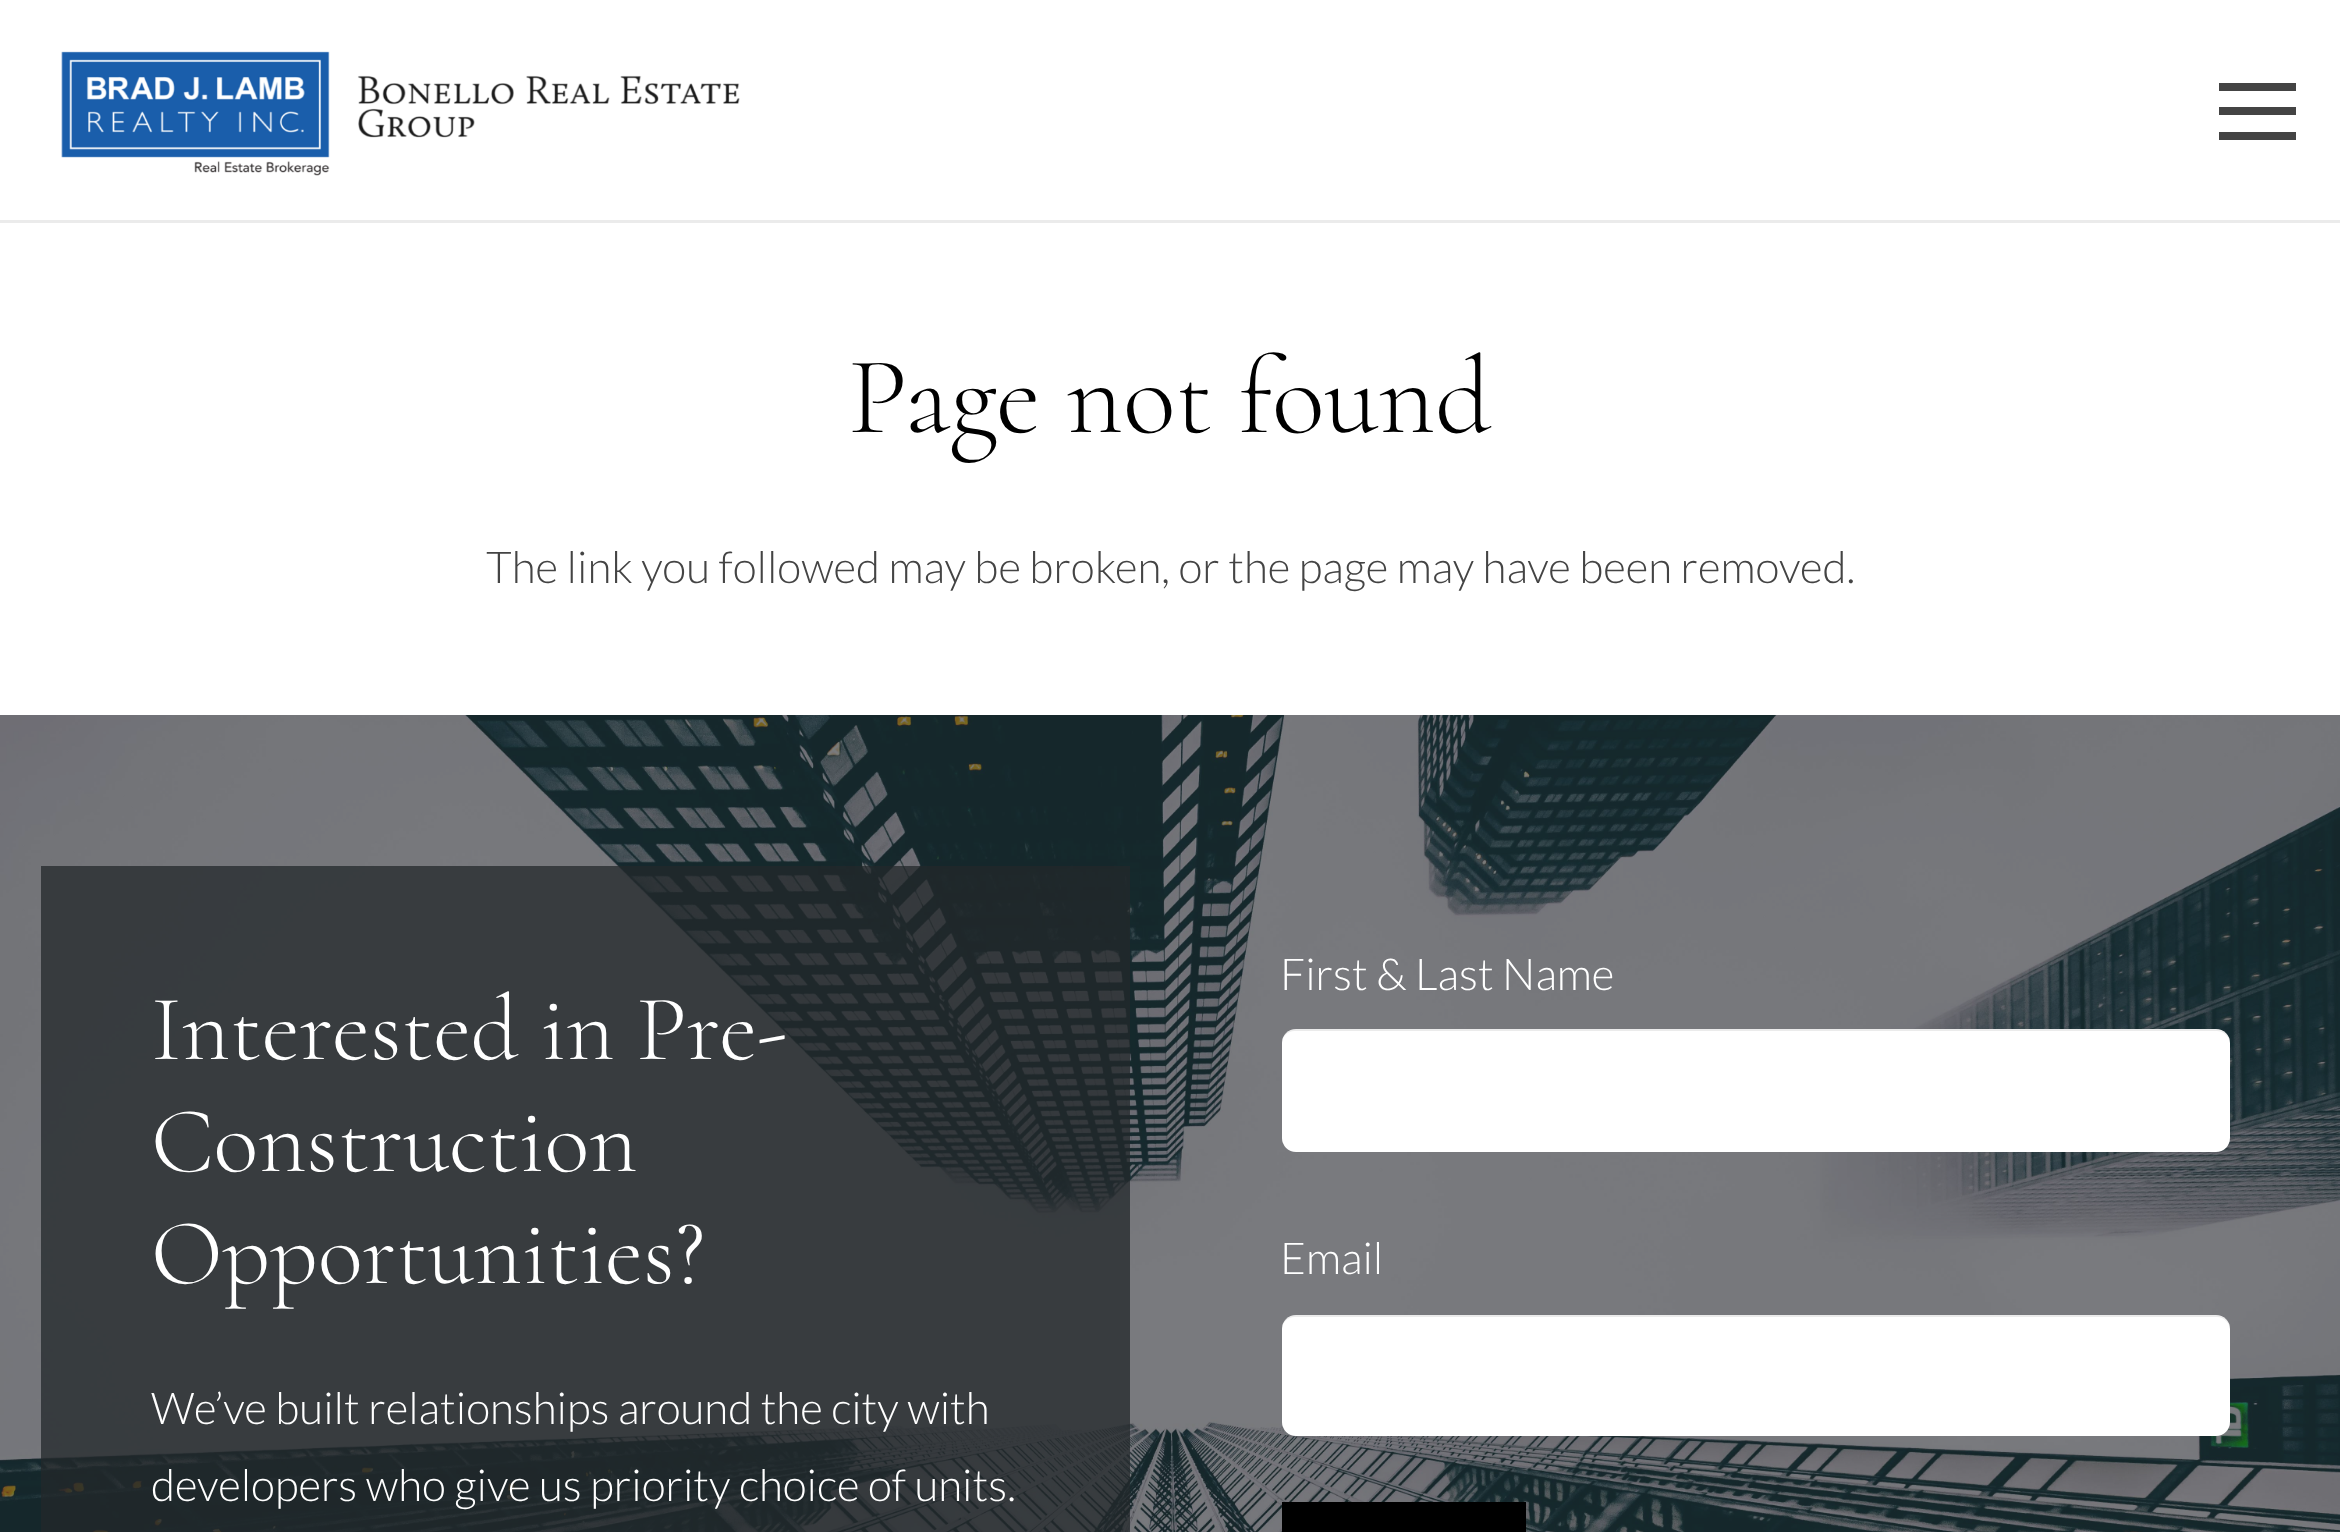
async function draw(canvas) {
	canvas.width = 2340;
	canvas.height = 1532;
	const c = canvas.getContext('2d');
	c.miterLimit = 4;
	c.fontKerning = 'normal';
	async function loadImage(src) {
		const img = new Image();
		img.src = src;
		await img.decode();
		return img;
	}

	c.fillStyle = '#fff';
	c.fillRect(0, 0, 2340, 1532);
	c.fillStyle = '#ebebeb';
	c.fillRect(0, 220, 2340, 3);
	c.drawImage(await loadImage('img1.png'), 61, 51, 679, 125);
	for (const [x, y, w, h, color] of [
		[2219, 107, 77, 8, '#444'],
		[2219, 83, 77, 8, '#444'],
		[2219, 132, 77, 8, '#444'],
	]) {
		c.fillStyle = color;
		c.fillRect(x, y, w, h);
	}
	c.font = '300 110px Cormorant';
	c.fillStyle = '#000';
	c.fillText('Page not found', 848, 432);
	c.font = '300 44px Lato';
	c.fillStyle = '#444';
	c.fillText('The link you followed may be broken, or the page may have been removed.', 486, 583);
	c.drawImage(await loadImage('img2.png'), 0, 715, 2340, 817);
	c.fillStyle = '#23282bbf';
	c.fillRect(41, 866, 1089, 666);
	c.font = '300 93.5px Cormorant';
	c.fillStyle = '#fff';
	for (const [text, x, y] of [
		['Interested in Pre-', 151, 1059],
		['Construction', 151, 1171],
		['Opportunities?', 151, 1283],
	]) {
		c.fillText(text, x, y);
	}
	c.font = '300 44px Lato';
	for (const [text, x, y] of [
		['We’ve built relationships around the city with', 151, 1424],
		['developers who give us priority choice of units.', 151, 1501],
		['First & Last Name', 1280, 990],
	]) {
		c.fillText(text, x, y);
	}
	c.beginPath();
	c.roundRect(1282, 1029, 948, 123, 14);
	c.fill();
	c.fillStyle = '#00000014';
	c.beginPath();
	c.moveTo(1295, 1031);
	c.lineTo(2217, 1031);
	c.bezierCurveTo(2224, 1031, 2230, 1037, 2230, 1044);
	c.bezierCurveTo(2230, 1036, 2224, 1029, 2216, 1029);
	c.lineTo(1296, 1029);
	c.bezierCurveTo(1288, 1029, 1282, 1036, 1282, 1044);
	c.bezierCurveTo(1282, 1037, 1287, 1031, 1295, 1031);
	c.closePath();
	c.fill();
	c.fillStyle = '#fff';
	c.fillText('Email', 1280, 1274);
	c.beginPath();
	c.roundRect(1282, 1315, 948, 121, 14);
	c.fill();
	c.fillStyle = '#00000014';
	c.beginPath();
	c.moveTo(1295, 1317);
	c.lineTo(2217, 1317);
	c.bezierCurveTo(2224, 1317, 2230, 1323, 2230, 1330);
	c.bezierCurveTo(2230, 1322, 2224, 1315, 2216, 1315);
	c.lineTo(1296, 1315);
	c.bezierCurveTo(1288, 1315, 1282, 1322, 1282, 1330);
	c.bezierCurveTo(1282, 1323, 1287, 1317, 1295, 1317);
	c.closePath();
	c.fill();
	c.fillStyle = '#000';
	c.fillRect(1282, 1502, 244, 30);
}

draw(document.querySelector('canvas'));
